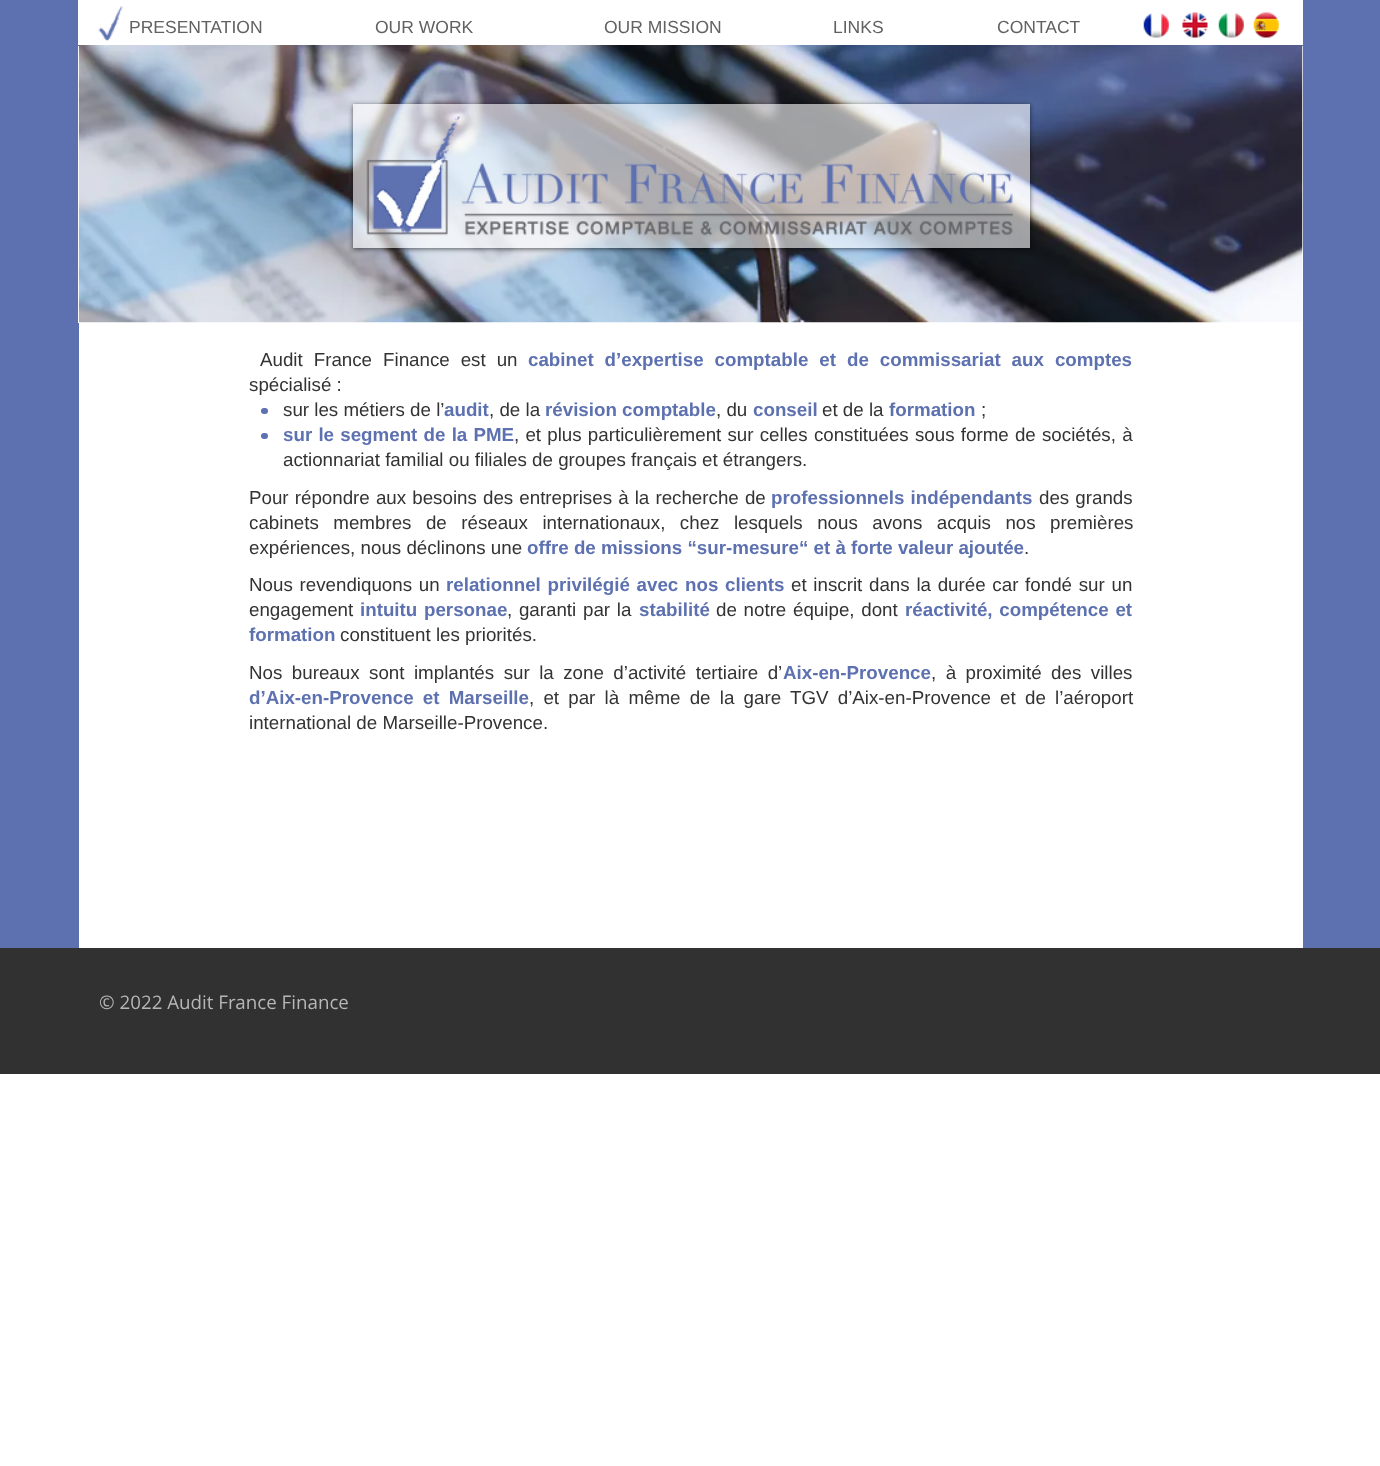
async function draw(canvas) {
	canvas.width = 1380;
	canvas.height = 1466;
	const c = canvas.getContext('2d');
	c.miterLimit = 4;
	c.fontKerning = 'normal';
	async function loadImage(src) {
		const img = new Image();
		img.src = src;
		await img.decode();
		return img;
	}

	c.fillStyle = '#fff';
	c.fillRect(0, 0, 1380, 1466);
	c.fillStyle = '#5d71b0';
	c.fillRect(0, 0, 1380, 323);
	c.fillStyle = '#fff';
	c.fillRect(78, 0, 1225, 323);
	c.drawImage(await loadImage('img1.png'), 1143, 13, 26, 25);
	c.drawImage(await loadImage('img2.png'), 1182, 12, 26, 26);
	c.drawImage(await loadImage('img3.png'), 1218, 12, 26, 26);
	c.drawImage(await loadImage('img4.png'), 1253, 12, 26, 26);
	c.fillStyle = '#5d71b0';
	c.fillRect(78, 45, 1225, 1);
	c.drawImage(await loadImage('img5.png'), 98, 6, 25, 35);
	c.font = '17.5px Liberation Sans';
	c.fillStyle = '#616161';
	for (const [text, x, y] of [
		['PRESENTATION', 129, 33],
		['OUR WORK', 375, 33],
		['OUR MISSION', 604, 33],
		['LINKS', 833, 33],
		['CONTACT', 997, 33],
	]) {
		c.fillText(text, x, y);
	}
	c.drawImage(await loadImage('img6.png'), 78, 45, 1225, 278);
	c.save();
	c.beginPath();
	c.moveTo(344, 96);
	c.lineTo(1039, 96);
	c.lineTo(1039, 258);
	c.lineTo(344, 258);
	c.closePath();
	c.moveTo(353, 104);
	c.lineTo(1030, 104);
	c.lineTo(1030, 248);
	c.lineTo(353, 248);
	c.closePath();
	c.clip('evenodd');
	c.fillStyle = '#00000099';
	c.filter = 'blur(2.5px)';
	c.beginPath();
	c.rect(353, 105, 677, 144);
	c.fill();
	c.filter = 'none';
	c.restore();
	c.fillStyle = '#ffffff99';
	c.fillRect(353, 104, 677, 144);
	c.drawImage(await loadImage('img7.png'), 366, 116, 648, 120);
	c.fillStyle = '#5d71b0';
	c.fillRect(0, 323, 79, 625);
	c.wordSpacing = '5.75px';
	c.font = '18.75px Liberation Sans';
	c.fillStyle = '#333';
	c.fillText('Audit France Finance est un', 260, 366);
	c.font = 'bold 18.75px Liberation Sans';
	c.fillStyle = '#5d71b0';
	c.fillText('cabinet d’expertise comptable et de commissariat aux comptes', 528, 366);
	c.wordSpacing = '0px';
	c.font = '18.75px Liberation Sans';
	c.fillStyle = '#333';
	c.fillText('spécialisé :', 249, 391);
	c.fillStyle = '#5d71b0';
	c.beginPath();
	c.roundRect(261, 408, 7, 6, 3);
	c.fill();
	c.fillStyle = '#333';
	c.fillText('sur les métiers de l’', 283, 416);
	c.font = 'bold 18.75px Liberation Sans';
	c.fillStyle = '#5d71b0';
	c.fillText('audit', 444, 416);
	c.font = '18.75px Liberation Sans';
	c.fillStyle = '#333';
	c.fillText(', de la', 489, 416);
	c.font = 'bold 18.75px Liberation Sans';
	c.fillStyle = '#5d71b0';
	c.fillText('révision comptable', 545, 416);
	c.font = '18.75px Liberation Sans';
	c.fillStyle = '#333';
	c.fillText(', du', 716, 416);
	c.font = 'bold 18.75px Liberation Sans';
	c.fillStyle = '#5d71b0';
	c.fillText('conseil', 753, 416);
	c.font = '18.75px Liberation Sans';
	c.fillStyle = '#333';
	c.fillText('et de la', 822, 416);
	c.font = 'bold 18.75px Liberation Sans';
	c.fillStyle = '#5d71b0';
	c.fillText('formation', 889, 416);
	c.font = '18.75px Liberation Sans';
	c.fillStyle = '#333';
	c.fillText(';', 981, 416);
	c.fillStyle = '#5d71b0';
	c.beginPath();
	c.roundRect(261, 433, 7, 6, 3);
	c.fill();
	c.wordSpacing = '1px';
	c.font = 'bold 18.75px Liberation Sans';
	c.fillText('sur le segment de la PME', 283, 441);
	c.font = '18.75px Liberation Sans';
	c.fillStyle = '#333';
	c.fillText(', et plus particulièrement sur celles constituées sous forme de sociétés, à', 514, 441);
	c.wordSpacing = '0px';
	c.fillText('actionnariat familial ou filiales de groupes français et étrangers.', 283, 466);
	c.wordSpacing = '0.9px';
	c.fillText('Pour répondre aux besoins des entreprises à la recherche de', 249, 504);
	c.wordSpacing = '1px';
	c.font = 'bold 18.75px Liberation Sans';
	c.fillStyle = '#5d71b0';
	c.fillText('professionnels indépendants', 771, 504);
	c.wordSpacing = '0.9px';
	c.font = '18.75px Liberation Sans';
	c.fillStyle = '#333';
	c.fillText('des grands', 1039, 504);
	c.wordSpacing = '9.25px';
	c.fillText('cabinets membres de réseaux internationaux, chez lesquels nous avons acquis nos premières', 249, 529);
	c.wordSpacing = '0px';
	c.fillText('expériences, nous déclinons une', 249, 554);
	c.font = 'bold 18.75px Liberation Sans';
	c.fillStyle = '#5d71b0';
	c.fillText('offre de missions “sur-mesure“ et à forte valeur ajoutée', 527, 554);
	c.font = '18.75px Liberation Sans';
	c.fillStyle = '#333';
	c.fillText('.', 1024, 554);
	c.wordSpacing = '1.5px';
	c.fillText('Nous revendiquons un', 249, 591);
	c.font = 'bold 18.75px Liberation Sans';
	c.fillStyle = '#5d71b0';
	c.fillText('relationnel privilégié avec nos clients', 446, 591);
	c.font = '18.75px Liberation Sans';
	c.fillStyle = '#333';
	c.fillText('et inscrit dans la durée car fondé sur un', 791, 591);
	c.wordSpacing = '0px';
	c.fillText('engagement', 249, 616);
	c.wordSpacing = '1.5px';
	c.font = 'bold 18.75px Liberation Sans';
	c.fillStyle = '#5d71b0';
	c.fillText('intuitu personae', 360, 616);
	c.font = '18.75px Liberation Sans';
	c.fillStyle = '#333';
	c.fillText(', garanti par la', 507, 616);
	c.wordSpacing = '0px';
	c.font = 'bold 18.75px Liberation Sans';
	c.fillStyle = '#5d71b0';
	c.fillText('stabilité', 639, 616);
	c.wordSpacing = '1.5px';
	c.font = '18.75px Liberation Sans';
	c.fillStyle = '#333';
	c.fillText('de notre équipe, dont', 716, 616);
	c.font = 'bold 18.75px Liberation Sans';
	c.fillStyle = '#5d71b0';
	c.fillText('réactivité, compétence et', 905, 616);
	c.wordSpacing = '0px';
	c.fillText('formation', 249, 641);
	c.font = '18.75px Liberation Sans';
	c.fillStyle = '#333';
	c.fillText('constituent les priorités.', 340, 641);
	c.wordSpacing = '4.25px';
	c.fillText('Nos bureaux sont implantés sur la zone d’activité tertiaire d’', 249, 679);
	c.wordSpacing = '0px';
	c.font = 'bold 18.75px Liberation Sans';
	c.fillStyle = '#5d71b0';
	c.fillText('Aix-en-Provence', 783, 679);
	c.wordSpacing = '4.25px';
	c.font = '18.75px Liberation Sans';
	c.fillStyle = '#333';
	c.fillText(', à proximité des villes', 931, 679);
	c.wordSpacing = '4px';
	c.font = 'bold 18.75px Liberation Sans';
	c.fillStyle = '#5d71b0';
	c.fillText('d’Aix-en-Provence et Marseille', 249, 704);
	c.font = '18.75px Liberation Sans';
	c.fillStyle = '#333';
	c.fillText(', et par là même de la gare TGV d’Aix-en-Provence et de l’aéroport', 529, 704);
	c.wordSpacing = '0px';
	c.fillText('international de Marseille-Provence.', 249, 729);
	c.fillStyle = '#5d71b0';
	c.fillRect(1303, 323, 77, 625);
	c.fillStyle = '#313131';
	c.fillRect(0, 948, 1380, 126);
	c.font = '18.75px Open Sans';
	c.fillStyle = '#b6b6b6';
	c.fillText('© 2022 Audit France Finance', 99, 1009);
}

draw(document.querySelector('canvas'));
